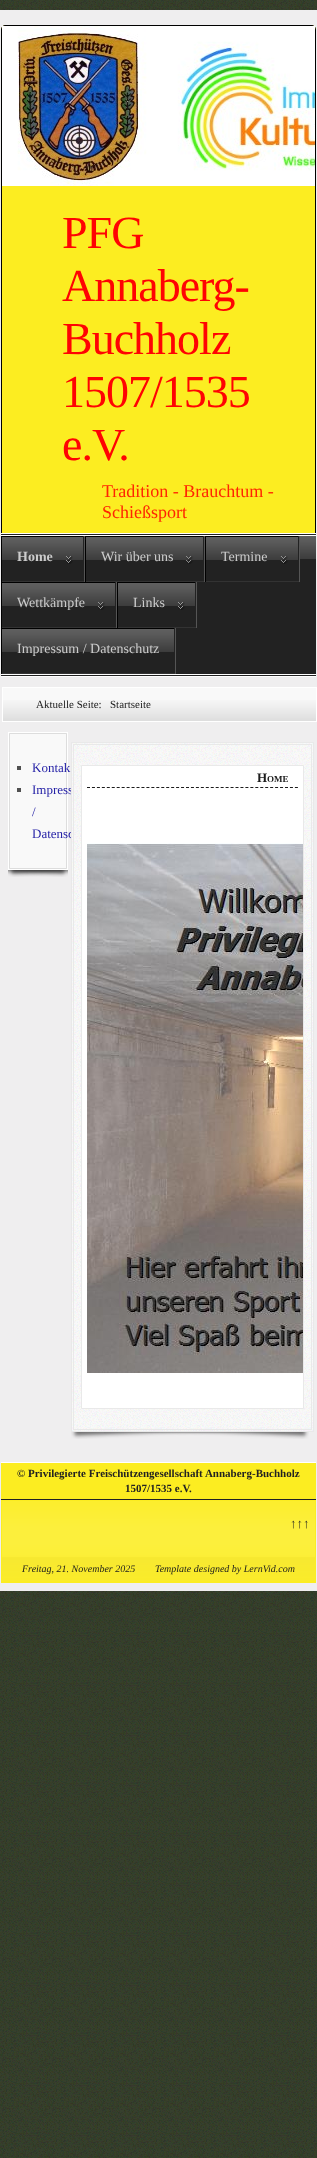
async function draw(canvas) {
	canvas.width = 317;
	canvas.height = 2158;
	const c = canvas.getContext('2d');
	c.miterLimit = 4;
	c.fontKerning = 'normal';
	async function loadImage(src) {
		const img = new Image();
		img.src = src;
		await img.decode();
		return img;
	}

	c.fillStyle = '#242e19';
	c.fillRect(0, 0, 317, 2158);
	c.drawImage(await loadImage('img1.png'), 0, 0, 317, 2158);
	c.fillStyle = '#efeeef';
	c.fillRect(0, 10, 317, 1581);
	c.fillStyle = '#fced21';
	c.beginPath();
	c.roundRect(1, 25, 315, 508, [5, 5, 0, 0]);
	c.fill();
	c.drawImage(await loadImage('img2.png'), 1, 27, 315, 3);
	c.fillStyle = '#000';
	c.beginPath();
	c.moveTo(6, 25);
	c.lineTo(311, 25);
	c.bezierCurveTo(314, 25, 316, 27, 316, 30);
	c.lineTo(316, 533);
	c.lineTo(1, 533);
	c.lineTo(1, 30);
	c.bezierCurveTo(1, 27, 3, 25, 6, 25);
	c.closePath();
	c.moveTo(6, 26);
	c.lineTo(311, 26);
	c.bezierCurveTo(313, 26, 315, 28, 315, 30);
	c.lineTo(315, 533);
	c.lineTo(2, 533);
	c.lineTo(2, 30);
	c.bezierCurveTo(2, 28, 4, 26, 6, 26);
	c.closePath();
	c.fill('evenodd');
	c.drawImage(await loadImage('img3.png'), 2, 26, 313, 160);
	c.letterSpacing = '-1px';
	c.font = '46px Liberation Serif';
	c.fillStyle = '#ff0303';
	for (const [text, x, y] of [
		['PFG', 62, 248],
		['Annaberg-', 62, 301],
		['Buchholz', 62, 354],
		['1507/1535', 62, 407],
		['e.V.', 62, 460],
	]) {
		c.fillText(text, x, y);
	}
	c.letterSpacing = '0px';
	c.font = '18px Liberation Serif';
	c.fillStyle = '#ff2402';
	c.fillText('Tradition - Brauchtum -', 102, 497);
	c.fillText('Schießsport', 102, 518);
	c.fillStyle = '#222';
	c.fillRect(1, 534, 315, 142);
	c.drawImage(await loadImage('img4.png'), 300, 536, 16, 23);
	for (const [x, y, w, h, color] of [
		[1, 533, 315, 1, '#fff'],
		[1, 535, 315, 1, '#fff'],
		[1, 674, 315, 1, '#fff'],
		[1, 676, 315, 1, '#fff'],
		[84, 536, 1, 46, '#555'],
	]) {
		c.fillStyle = color;
		c.fillRect(x, y, w, h);
	}
	c.drawImage(await loadImage('img5.png'), 2, 537, 81, 27);
	for (const [x, y, w, h, color] of [
		[1, 536, 83, 1, '#000'],
		[83, 536, 1, 1, '#222'],
		[1, 581, 83, 1, '#333'],
		[1, 536, 1, 46, '#000'],
	]) {
		c.fillStyle = color;
		c.fillRect(x, y, w, h);
	}
	c.font = 'bold 14px Liberation Serif';
	c.fillStyle = '#ccc';
	c.fillText('Home', 17, 561);
	c.fillStyle = '#555';
	c.fillRect(204, 536, 1, 46);
	c.drawImage(await loadImage('img6.png'), 86, 537, 117, 27);
	for (const [x, y, w, h, color] of [
		[85, 536, 119, 1, '#000'],
		[203, 536, 1, 1, '#222'],
		[85, 581, 119, 1, '#333'],
		[85, 536, 1, 46, '#000'],
	]) {
		c.fillStyle = color;
		c.fillRect(x, y, w, h);
	}
	c.font = '14px Liberation Serif';
	c.fillStyle = '#ccc';
	c.fillText('Wir über uns', 101, 561);
	c.fillStyle = '#555';
	c.fillRect(299, 536, 1, 46);
	c.drawImage(await loadImage('img7.png'), 206, 537, 92, 27);
	for (const [x, y, w, h, color] of [
		[205, 536, 94, 1, '#000'],
		[298, 536, 1, 1, '#222'],
		[205, 581, 94, 1, '#333'],
		[205, 536, 1, 46, '#000'],
	]) {
		c.fillStyle = color;
		c.fillRect(x, y, w, h);
	}
	c.fillStyle = '#ccc';
	c.fillText('Termine', 221, 561);
	c.fillStyle = '#555';
	c.fillRect(116, 582, 1, 46);
	c.drawImage(await loadImage('img8.png'), 2, 583, 113, 27);
	for (const [x, y, w, h, color] of [
		[1, 582, 115, 1, '#000'],
		[115, 582, 1, 1, '#222'],
		[1, 627, 115, 1, '#333'],
		[1, 582, 1, 46, '#000'],
	]) {
		c.fillStyle = color;
		c.fillRect(x, y, w, h);
	}
	c.fillStyle = '#ccc';
	c.fillText('Wettkämpfe', 17, 607);
	c.fillStyle = '#555';
	c.fillRect(196, 582, 1, 46);
	c.drawImage(await loadImage('img9.png'), 118, 583, 77, 27);
	for (const [x, y, w, h, color] of [
		[117, 582, 79, 1, '#000'],
		[195, 582, 1, 1, '#222'],
		[117, 627, 79, 1, '#333'],
		[117, 582, 1, 46, '#000'],
	]) {
		c.fillStyle = color;
		c.fillRect(x, y, w, h);
	}
	c.fillStyle = '#ccc';
	c.fillText('Links', 133, 607);
	c.fillStyle = '#555';
	c.fillRect(175, 628, 1, 46);
	c.drawImage(await loadImage('img10.png'), 2, 629, 172, 23);
	for (const [x, y, w, h, color] of [
		[1, 628, 174, 1, '#000'],
		[174, 628, 1, 1, '#222'],
		[1, 673, 174, 1, '#333'],
		[1, 628, 1, 46, '#000'],
	]) {
		c.fillStyle = color;
		c.fillRect(x, y, w, h);
	}
	c.fillStyle = '#ccc';
	c.fillText('Impressum / Datenschutz', 17, 653);
	c.fillStyle = '#f9f9f9';
	c.fillRect(3, 688, 313, 33);
	c.drawImage(await loadImage('img11.png'), 3, 700, 313, 21);
	c.strokeStyle = '#fff';
	c.strokeRect(2.5, 687.5, 314, 34);
	c.font = '11px Liberation Serif';
	c.fillStyle = '#1c1c1c';
	c.fillText('Aktuelle Seite:', 36, 708);
	c.fillText('Startseite', 110, 708);
	c.strokeRect(8.5, 732.5, 59, 137);
	c.fillStyle = '#f9f9f9';
	c.beginPath();
	c.rect(9.5, 733.5, 57, 135);
	c.fill();
	c.strokeStyle = '#ddd';
	c.stroke();
	c.fillStyle = '#505050';
	c.fillRect(17, 766, 4, 4);
	c.font = '13px Liberation Serif';
	c.fillStyle = '#221ea5';
	c.fillText('Kontak', 32, 772);
	c.fillStyle = '#505050';
	c.fillRect(17, 788, 4, 4);
	c.fillStyle = '#221ea5';
	for (const [text, x, y] of [
		['Impress', 32, 794],
		['/', 32, 816],
		['Datensc', 32, 838],
	]) {
		c.fillText(text, x, y);
	}
	c.drawImage(await loadImage('img12.png'), 8, 870, 60, 7);
	c.drawImage(await loadImage('img13.png'), 8, 870, 60, 7);
	c.fillStyle = '#f9f9f9';
	c.fillRect(72, 743, 241, 688);
	c.drawImage(await loadImage('img14.png'), 72, 743, 241, 688);
	c.strokeStyle = '#e9e9e9';
	c.strokeRect(71.5, 742.5, 242, 689);
	c.strokeRect(73.5, 744.5, 238, 685);
	c.fillStyle = '#fff';
	c.beginPath();
	c.rect(81.5, 765.5, 222, 643);
	c.fill();
	c.stroke();
	c.beginPath();
	c.moveTo(87, 787.5);
	c.lineTo(298, 787.5);
	c.strokeStyle = '#1c1c1c';
	c.setLineDash([3, 1.95]);
	c.stroke();
	c.font = 'bold 13px Liberation Serif';
	c.fillStyle = '#1c1c1c';
	c.fillText('H', 257, 782);
	c.font = 'bold 9px Liberation Serif';
	c.fillText('OME', 267, 782);
	c.drawImage(await loadImage('img15.png'), 87, 843, 216, 530);
	c.drawImage(await loadImage('img16.png'), 71, 1432, 214, 7);
	c.drawImage(await loadImage('img17.png'), 104, 1432, 205, 7);
	for (const [x, y, w, h, color] of [
		[1, 1463, 315, 36, '#fced21'],
		[1, 1462, 315, 1, '#fff'],
		[1, 1499, 315, 1, '#222'],
	]) {
		c.fillStyle = color;
		c.fillRect(x, y, w, h);
	}
	c.font = 'bold 11px Liberation Serif';
	c.fillText('© Privilegierte Freischützengesellschaft Annaberg-Buchholz', 17, 1477);
	c.fillText('1507/1535 e.V.', 125, 1492);
	c.fillStyle = '#fced21';
	c.fillRect(2, 1501, 313, 80);
	c.drawImage(await loadImage('img18.png'), 2, 1501, 313, 80);
	for (const [x, y, w, h, color] of [
		[1, 1500, 315, 1, '#fced21'],
		[315, 1500, 1, 83, '#fced21'],
		[1, 1581, 315, 2, '#fced21'],
		[1, 1500, 1, 83, '#fced21'],
	]) {
		c.fillStyle = color;
		c.fillRect(x, y, w, h);
	}
	c.font = '13px Liberation Serif';
	c.fillStyle = '#222';
	c.fillText('↑↑↑', 290, 1528);
	c.font = 'italic 10px Liberation Serif';
	c.fillStyle = '#1c1c1c';
	c.fillText('Freitag, 21. November 2025', 22, 1572);
	c.fillText('Template designed by LernVid.com', 155, 1572);
}

draw(document.querySelector('canvas'));
